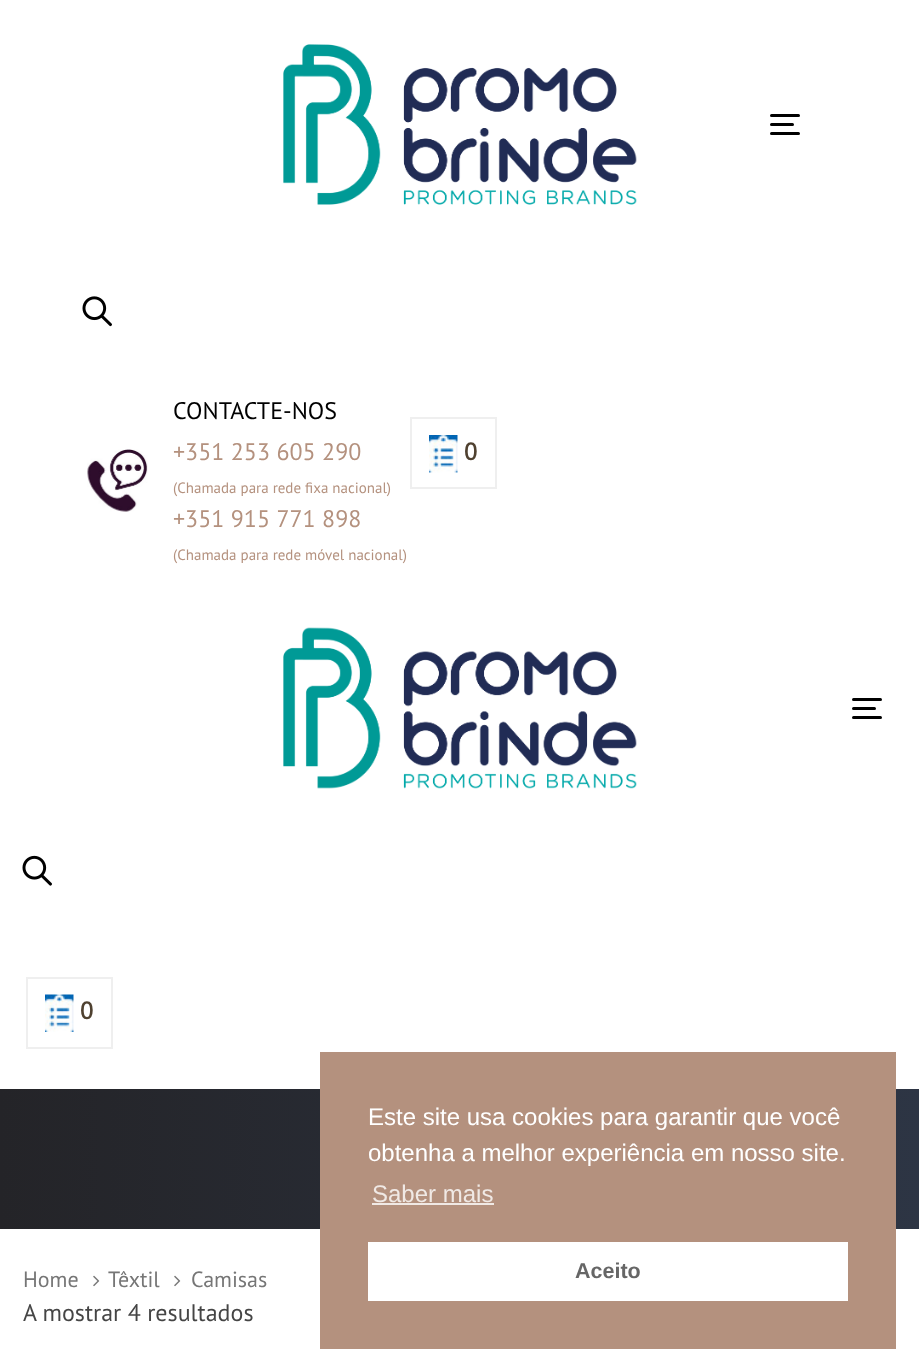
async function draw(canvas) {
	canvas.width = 919;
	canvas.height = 1372;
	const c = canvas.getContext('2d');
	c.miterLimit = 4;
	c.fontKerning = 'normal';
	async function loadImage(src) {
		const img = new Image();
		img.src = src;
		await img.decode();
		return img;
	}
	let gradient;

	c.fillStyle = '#fff';
	c.fillRect(0, 0, 919, 1372);
	c.drawImage(await loadImage('img1.png'), 283, 44, 354, 161);
	c.fillStyle = '#000';
	c.beginPath();
	c.roundRect(770, 114, 30, 3, 1.5);
	c.fill();
	c.beginPath();
	c.roundRect(770, 123, 24, 3, 1.5);
	c.fill();
	c.beginPath();
	c.roundRect(770, 132, 30, 3, 1.5);
	c.fill();
	c.drawImage(await loadImage('img2.png'), 82, 296, 30, 31);
	c.drawImage(await loadImage('img3.png'), 87, 449, 61, 63);
	c.font = '24px PT Sans';
	c.fillText('CONTACTE-NOS', 173, 419);
	c.fillStyle = '#b4917e';
	c.fillText('+351 253 605 290', 173, 460);
	c.font = '15px PT Sans';
	c.fillText('(Chamada para rede fixa nacional)', 173, 493);
	c.font = '24px PT Sans';
	c.fillText('+351 915 771 898', 173, 527);
	c.font = '15px PT Sans';
	c.fillText('(Chamada para rede móvel nacional)', 173, 560);
	c.strokeStyle = '#efefef';
	c.lineWidth = 2;
	c.strokeRect(411, 418, 85, 70);
	c.drawImage(await loadImage('img4.png'), 429, 435, 29, 38);
	c.font = 'bold 24px PT Sans';
	c.fillStyle = '#4f4130';
	c.fillText('0', 464, 460);
	c.drawImage(await loadImage('img5.png'), 283, 627, 354, 162);
	c.fillStyle = '#000';
	c.beginPath();
	c.roundRect(852, 698, 30, 3, 1.5);
	c.fill();
	c.beginPath();
	c.roundRect(852, 707, 24, 3, 1.5);
	c.fill();
	c.beginPath();
	c.roundRect(852, 716, 30, 3, 1.5);
	c.fill();
	c.drawImage(await loadImage('img6.png'), 22, 855, 30, 31);
	c.strokeRect(27, 978, 85, 70);
	c.drawImage(await loadImage('img7.png'), 45, 994, 29, 38);
	c.fillStyle = '#4f4130';
	c.fillText('0', 80, 1019);
	gradient = c.createLinearGradient(0, 1159, 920, 1159);
	gradient.addColorStop(0, '#242428');
	gradient.addColorStop(1, '#2d3544');
	c.fillStyle = gradient;
	c.fillRect(0, 1089, 919, 140);
	c.font = '22px PT Sans';
	c.fillStyle = '#767676';
	c.fillText('Home', 23, 1287);
	c.drawImage(await loadImage('img8.png'), 93, 1275, 7, 12);
	c.fillText('Têxtil', 108, 1287);
	c.drawImage(await loadImage('img8.png'), 174, 1275, 7, 12);
	c.fillText('Camisas', 191, 1287);
	c.font = '24px PT Sans';
	c.fillStyle = '#454545';
	c.fillText('A mostrar 4 resultados', 23, 1321);
	c.fillStyle = '#b4917e';
	c.fillRect(320, 1052, 576, 297);
	c.font = '24px Liberation Sans';
	c.fillStyle = '#fff';
	c.fillText('Este site usa cookies para garantir que você', 368, 1125);
	c.fillText('obtenha a melhor experiência em nosso site.', 368, 1161);
	c.fillStyle = '#f0e9e5';
	c.fillText('Saber mais', 372, 1202);
	c.fillRect(372, 1203, 122, 2);
	c.fillStyle = '#fff';
	c.fillRect(368, 1242, 480, 59);
	c.font = 'bold 21.5px Liberation Sans';
	c.fillStyle = '#666';
	c.fillText('Aceito', 575, 1278);
}

draw(document.querySelector('canvas'));
